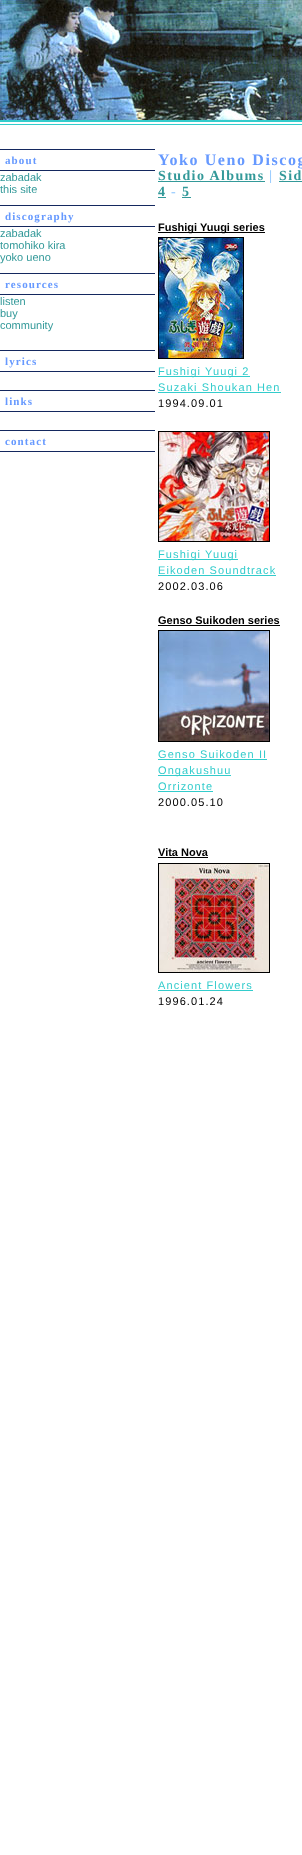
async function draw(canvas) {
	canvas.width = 302;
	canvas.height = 1855;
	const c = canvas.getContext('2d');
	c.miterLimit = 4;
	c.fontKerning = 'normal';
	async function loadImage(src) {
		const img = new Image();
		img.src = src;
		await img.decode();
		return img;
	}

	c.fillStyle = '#fff';
	c.fillRect(0, 0, 302, 1855);
	c.drawImage(await loadImage('img1.png'), 0, 0, 302, 120);
	for (const [x, y, w, h, color] of [
		[0, 120, 302, 2, '#3cc'],
		[0, 124, 302, 1, '#3cc'],
		[0, 149, 155, 1, '#14285f'],
		[0, 170, 155, 1, '#14285f'],
	]) {
		c.fillStyle = color;
		c.fillRect(x, y, w, h);
	}
	c.letterSpacing = '1.1px';
	c.font = 'bold 11px Liberation Serif';
	c.fillStyle = '#69f';
	c.fillText('about', 5, 164);
	c.letterSpacing = '0px';
	c.font = '11px Liberation Sans';
	c.fillStyle = '#399';
	c.fillText('zabadak', 0, 181);
	c.fillText('this site', 0, 193);
	c.fillStyle = '#14285f';
	c.fillRect(0, 205, 155, 1);
	c.fillRect(0, 226, 155, 1);
	c.letterSpacing = '1.1px';
	c.font = 'bold 11px Liberation Serif';
	c.fillStyle = '#69f';
	c.fillText('discography', 5, 220);
	c.letterSpacing = '0px';
	c.font = '11px Liberation Sans';
	c.fillStyle = '#399';
	for (const [text, x, y] of [
		['zabadak', 0, 237],
		['tomohiko kira', 0, 249],
		['yoko ueno', 0, 261],
	]) {
		c.fillText(text, x, y);
	}
	c.fillStyle = '#14285f';
	c.fillRect(0, 273, 155, 1);
	c.fillRect(0, 294, 155, 1);
	c.letterSpacing = '1.1px';
	c.font = 'bold 11px Liberation Serif';
	c.fillStyle = '#69f';
	c.fillText('resources', 5, 288);
	c.letterSpacing = '0px';
	c.font = '11px Liberation Sans';
	c.fillStyle = '#399';
	for (const [text, x, y] of [
		['listen', 0, 305],
		['buy', 0, 317],
		['community', 0, 329],
	]) {
		c.fillText(text, x, y);
	}
	c.fillStyle = '#14285f';
	c.fillRect(0, 350, 155, 1);
	c.fillRect(0, 371, 155, 1);
	c.letterSpacing = '1.1px';
	c.font = 'bold 11px Liberation Serif';
	c.fillStyle = '#69f';
	c.fillText('lyrics', 5, 365);
	c.fillStyle = '#14285f';
	c.fillRect(0, 390, 155, 1);
	c.fillRect(0, 411, 155, 1);
	c.fillStyle = '#69f';
	c.fillText('links', 5, 405);
	c.fillStyle = '#14285f';
	c.fillRect(0, 430, 155, 1);
	c.fillRect(0, 451, 155, 1);
	c.fillStyle = '#69f';
	c.fillText('contact', 5, 445);
	c.letterSpacing = '1.6px';
	c.font = 'bold 16px Liberation Serif';
	c.fillText('Yoko Ueno Discog', 158, 165);
	c.letterSpacing = '1.4px';
	c.font = 'bold 14px Liberation Serif';
	c.fillStyle = '#399';
	c.fillText('Studio Albums', 158, 180);
	c.fillRect(158, 181, 107, 1);
	c.fillStyle = '#9cf';
	c.fillText('|', 269, 180);
	c.fillStyle = '#399';
	c.fillText('Sid', 279, 180);
	c.fillRect(279, 181, 23, 1);
	c.fillText('4', 158, 196);
	c.fillRect(158, 197, 8, 1);
	c.fillStyle = '#9cf';
	c.fillText('-', 171, 196);
	c.fillStyle = '#399';
	c.fillText('5', 182, 196);
	c.fillRect(182, 197, 9, 1);
	c.fillStyle = '#000';
	c.fillRect(158, 232, 107, 1);
	c.letterSpacing = '0px';
	c.font = 'bold 11px Liberation Sans';
	c.fillText('Fushigi Yuugi series', 158, 231);
	c.strokeStyle = '#000';
	c.strokeRect(158.5, 237.5, 85, 121);
	c.drawImage(await loadImage('img2.png'), 159, 238, 84, 120);
	c.fillStyle = '#3cc';
	c.fillRect(158, 376, 92, 1);
	c.letterSpacing = '1.1px';
	c.font = '11px Liberation Sans';
	c.fillText('Fushigi Yuugi 2', 158, 375);
	c.fillText('Suzaki Shoukan Hen', 158, 391);
	c.fillRect(158, 392, 123, 1);
	c.fillStyle = '#000';
	c.fillText('1994.09.01', 158, 407);
	c.strokeRect(158.5, 431.5, 111, 110);
	c.drawImage(await loadImage('img3.png'), 159, 432, 110, 109);
	c.fillStyle = '#3cc';
	c.fillRect(158, 559, 80, 1);
	c.fillText('Fushigi Yuugi', 158, 558);
	c.fillText('Eikoden Soundtrack', 158, 574);
	c.fillRect(158, 575, 118, 1);
	c.fillStyle = '#000';
	c.fillText('2002.03.06', 158, 590);
	c.letterSpacing = '0px';
	c.font = 'bold 11px Liberation Sans';
	c.fillText('Genso Suikoden series', 158, 624);
	c.fillRect(158, 625, 122, 1);
	c.strokeRect(158.5, 630.5, 111, 111);
	c.drawImage(await loadImage('img4.png'), 159, 631, 110, 110);
	c.letterSpacing = '1.1px';
	c.font = '11px Liberation Sans';
	c.fillStyle = '#3cc';
	c.fillText('Genso Suikoden II', 158, 758);
	c.fillRect(158, 759, 109, 1);
	c.fillRect(158, 775, 73, 1);
	c.fillText('Ongakushuu', 158, 774);
	c.fillText('Orrizonte', 158, 790);
	c.fillRect(158, 791, 55, 1);
	c.fillStyle = '#000';
	c.fillText('2000.05.10', 158, 806);
	c.letterSpacing = '0px';
	c.font = 'bold 11px Liberation Sans';
	c.fillText('Vita Nova', 158, 856);
	c.fillRect(158, 857, 50, 1);
	c.strokeRect(158.5, 863.5, 111, 109);
	c.drawImage(await loadImage('img5.png'), 159, 864, 110, 108);
	c.letterSpacing = '1.1px';
	c.font = '11px Liberation Sans';
	c.fillStyle = '#3cc';
	c.fillText('Ancient Flowers', 158, 989);
	c.fillRect(158, 990, 95, 1);
	c.fillStyle = '#000';
	c.fillText('1996.01.24', 158, 1005);
}

draw(document.querySelector('canvas'));
